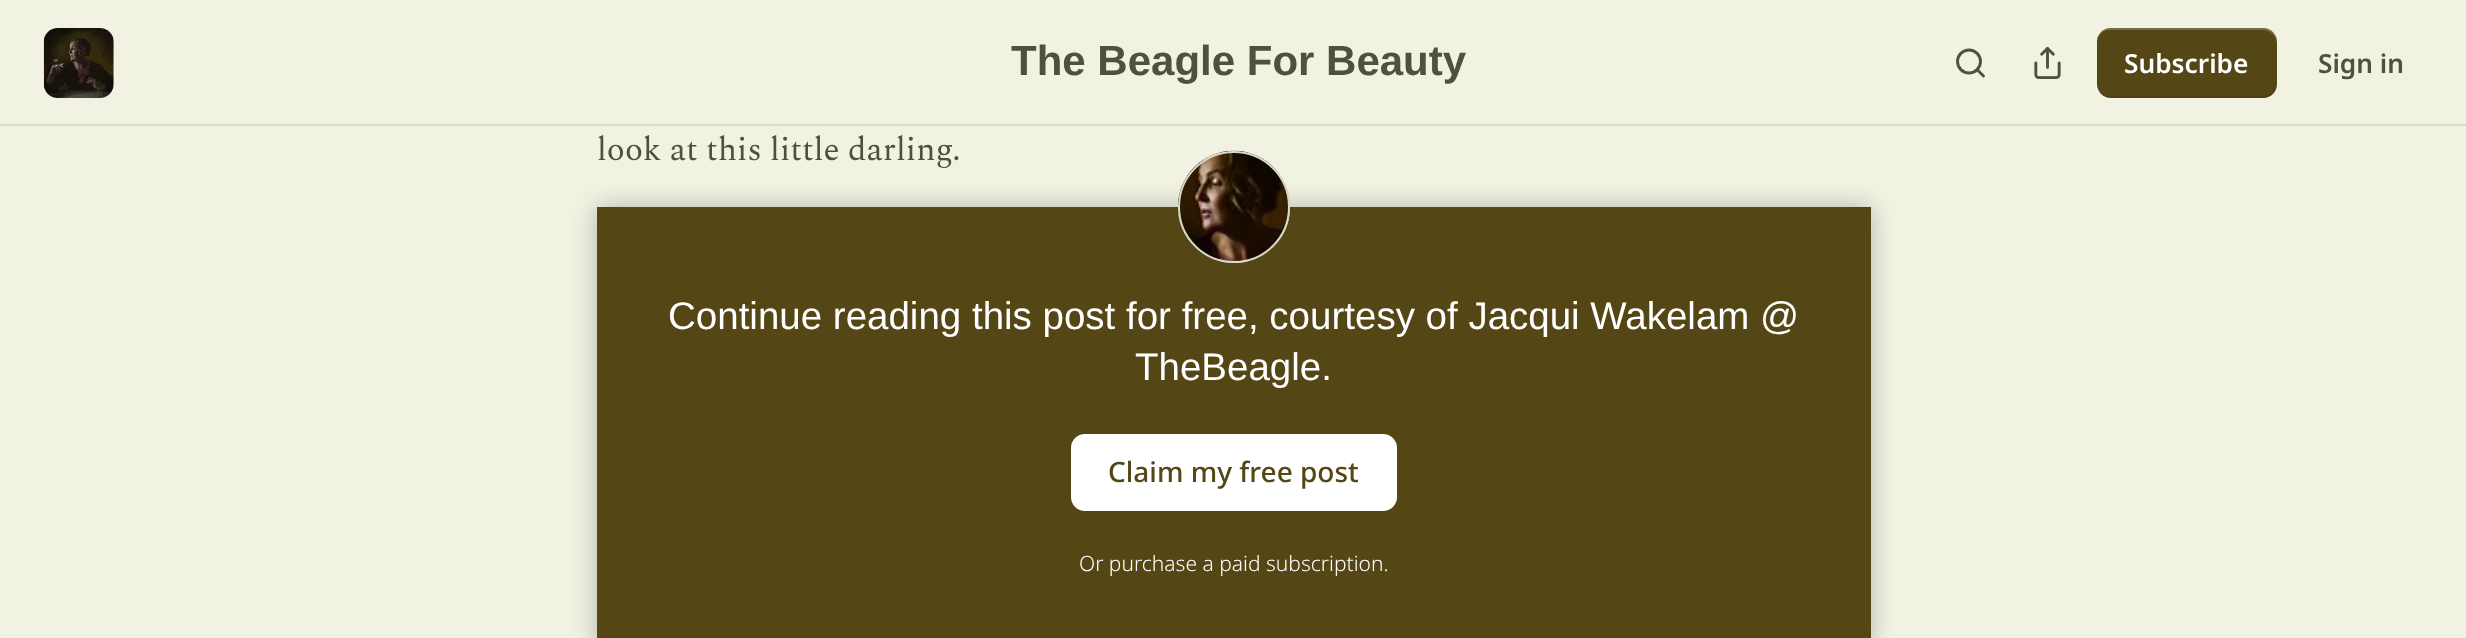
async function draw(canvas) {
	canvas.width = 2466;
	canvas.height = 638;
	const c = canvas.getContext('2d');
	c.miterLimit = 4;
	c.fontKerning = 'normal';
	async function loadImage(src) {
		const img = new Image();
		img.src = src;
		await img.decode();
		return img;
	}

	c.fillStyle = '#f2f2e3';
	c.fillRect(0, 0, 2466, 638);
	c.fillStyle = '#dadacc';
	c.fillRect(0, 124, 2466, 2);
	c.fillStyle = '#fff';
	c.beginPath();
	c.roundRect(44, 28, 70, 70, 14);
	c.fill();
	c.drawImage(await loadImage('img1.png'), 43, 28, 71, 70);
	c.font = 'bold 42px Liberation Sans';
	c.fillStyle = '#505041';
	c.fillText('The Beagle For Beauty', 1011, 75);
	c.beginPath();
	c.arc(1969, 61.5, 11.5, 0, 2 * Math.PI);
	c.strokeStyle = '#505041';
	c.lineWidth = 2.9;
	c.stroke();
	c.beginPath();
	c.moveTo(1983.5, 76);
	c.lineTo(1977.5, 70);
	c.lineCap = 'round';
	c.lineJoin = 'round';
	c.stroke();
	c.drawImage(await loadImage('img2.png'), 2034, 47, 27, 32);
	c.fillStyle = '#554615';
	c.beginPath();
	c.roundRect(2097, 28, 180, 70, 14);
	c.fill();
	c.fillStyle = '#0000001a';
	c.beginPath();
	c.moveTo(2098, 89);
	c.bezierCurveTo(2100, 94, 2105, 98, 2111, 98);
	c.lineTo(2263, 98);
	c.bezierCurveTo(2271, 98, 2277, 92, 2277, 84);
	c.lineTo(2277, 82);
	c.bezierCurveTo(2277, 90, 2270, 96, 2263, 96);
	c.lineTo(2110, 96);
	c.bezierCurveTo(2105, 96, 2100, 93, 2098, 89);
	c.closePath();
	c.fill();
	c.fillStyle = '#ffffff33';
	c.beginPath();
	c.moveTo(2110, 30);
	c.lineTo(2263, 30);
	c.bezierCurveTo(2270, 30, 2277, 36, 2277, 44);
	c.lineTo(2277, 42);
	c.bezierCurveTo(2277, 34, 2271, 28, 2263, 28);
	c.lineTo(2111, 28);
	c.bezierCurveTo(2105, 28, 2100, 32, 2098, 37);
	c.bezierCurveTo(2100, 33, 2105, 30, 2110, 30);
	c.closePath();
	c.fill();
	c.font = '600 26.25px Noto Sans';
	c.fillStyle = '#fff';
	c.fillText('Subscribe', 2124, 73);
	c.fillStyle = '#505041';
	c.fillText('Sign in', 2318, 73);
	c.font = '33.25px Spectral';
	c.fillText('look at this little darling.', 597, 160);
	c.fillStyle = '#554615';
	c.fillRect(597, 207, 1274, 431);
	c.fillStyle = '#fff';
	c.beginPath();
	c.roundRect(1072, 435, 324, 75, 13);
	c.fill();
	c.strokeStyle = '#fff';
	c.lineWidth = 2;
	c.lineJoin = 'miter';
	c.stroke();
	c.save();
	c.beginPath();
	c.moveTo(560, 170);
	c.lineTo(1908, 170);
	c.lineTo(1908, 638);
	c.lineTo(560, 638);
	c.closePath();
	c.moveTo(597, 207);
	c.lineTo(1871, 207);
	c.lineTo(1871, 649);
	c.lineTo(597, 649);
	c.closePath();
	c.clip('evenodd');
	c.fillStyle = '#00000040';
	c.filter = 'blur(12px)';
	c.beginPath();
	c.rect(597, 207, 1274, 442);
	c.fill();
	c.filter = 'none';
	c.restore();
	c.beginPath();
	c.arc(1234, 207, 55, 0, 2 * Math.PI);
	c.strokeStyle = '#dadacc';
	c.stroke();
	c.drawImage(await loadImage('img3.png'), 1178, 150, 112, 113);
	c.beginPath();
	c.arc(1234, 207, 55, 0, 2 * Math.PI);
	c.stroke();
	c.font = '38.5px Liberation Sans';
	c.fillText('Continue reading this post for free, courtesy of Jacqui Wakelam @', 668, 329);
	c.fillText('TheBeagle.', 1135, 380);
	c.font = '500 28px Noto Sans';
	c.fillStyle = '#554615';
	c.fillText('Claim my free post', 1108, 482);
	c.font = '300 21px Noto Sans';
	c.fillStyle = '#fff';
	c.fillText('Or purchase a paid subscription.', 1079, 571);
}

draw(document.querySelector('canvas'));
